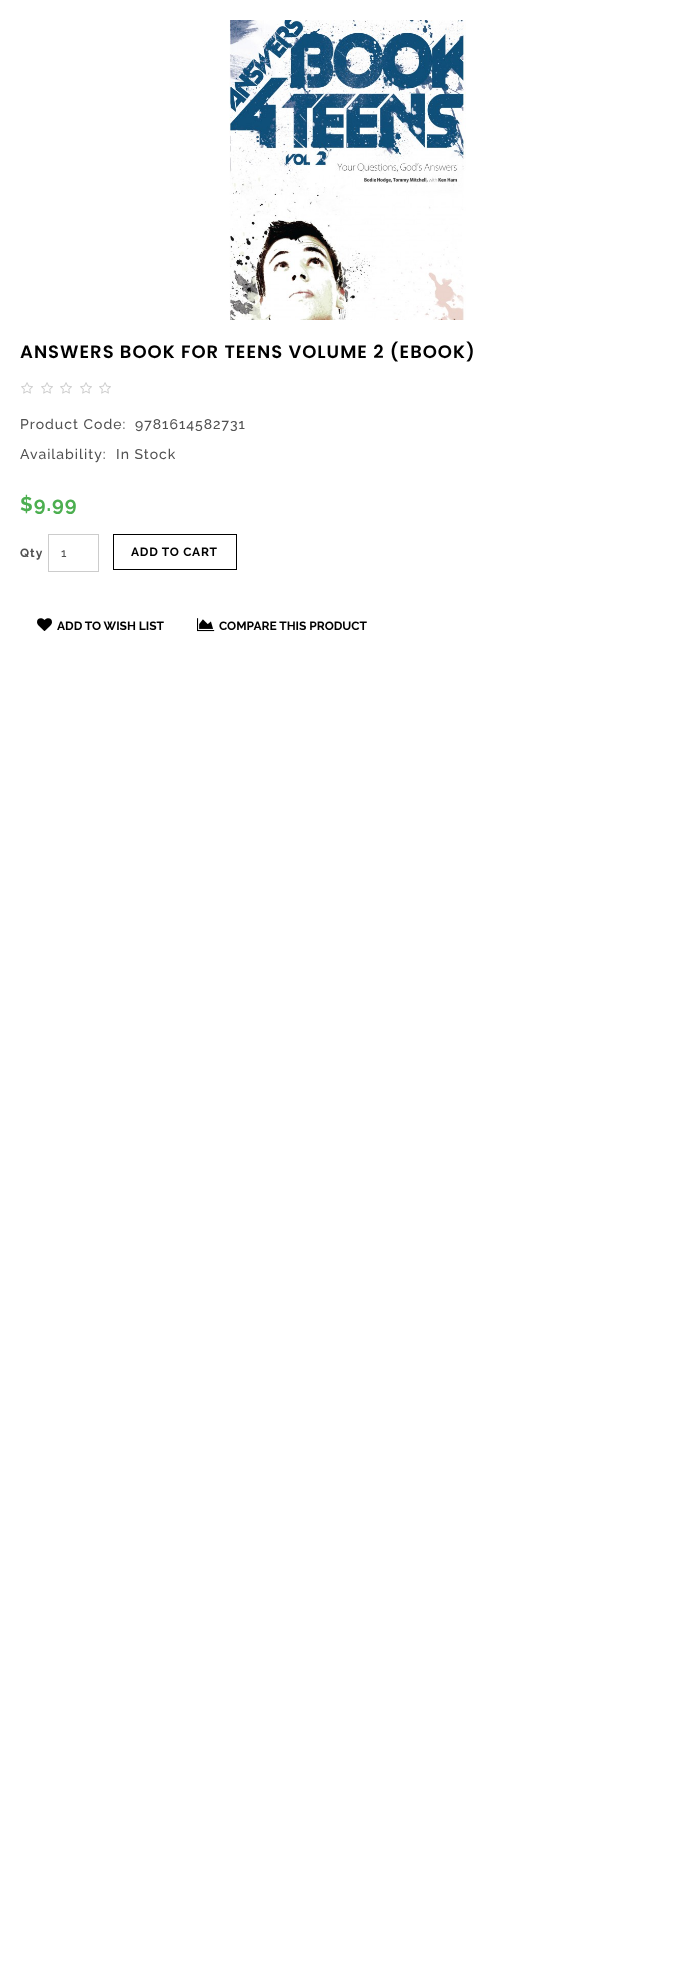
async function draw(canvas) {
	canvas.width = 693;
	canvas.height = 1970;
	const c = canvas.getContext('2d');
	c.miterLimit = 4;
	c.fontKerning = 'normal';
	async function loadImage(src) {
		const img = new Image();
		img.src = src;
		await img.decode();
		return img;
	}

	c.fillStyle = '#fff';
	c.fillRect(0, 0, 693, 1970);
	c.drawImage(await loadImage('img1.png'), 229, 20, 237, 300);
	c.letterSpacing = '1px';
	c.font = '600 18px Poppins';
	c.fillStyle = '#000';
	c.fillText('ANSWERS BOOK FOR TEENS VOLUME 2 (EBOOK)', 20, 358);
	c.drawImage(await loadImage('img2.png'), 21, 382, 12, 12);
	c.drawImage(await loadImage('img2.png'), 41, 382, 12, 12);
	c.drawImage(await loadImage('img2.png'), 60, 382, 12, 12);
	c.drawImage(await loadImage('img2.png'), 80, 382, 12, 12);
	c.drawImage(await loadImage('img2.png'), 99, 382, 12, 12);
	c.font = '500 14px Raleway';
	c.fillStyle = '#515151';
	for (const [text, x, y] of [
		['Product Code:', 20, 429],
		['9781614582731', 135, 429],
		['Availability:', 20, 459],
		['In Stock', 116, 459],
	]) {
		c.fillText(text, x, y);
	}
	c.font = 'bold 20px Raleway';
	c.fillStyle = '#4caf50';
	c.fillText('$9.99', 20, 511);
	c.font = 'bold 12px Raleway';
	c.fillStyle = '#515151';
	c.fillText('Qty', 20, 557);
	c.strokeStyle = '#ccc';
	c.strokeRect(48.5, 534.5, 50, 37);
	c.letterSpacing = '0px';
	c.font = '500 12px Raleway';
	c.fillText('1', 61, 557);
	c.strokeStyle = '#000';
	c.strokeRect(113.5, 534.5, 123, 35);
	c.letterSpacing = '0.75px';
	c.font = 'bold 12px Raleway';
	c.fillStyle = '#000';
	c.fillText('ADD TO CART', 131, 556);
	c.drawImage(await loadImage('img3.png'), 37, 618, 15, 13);
	c.letterSpacing = '0px';
	c.fillText('ADD TO WISH LIST', 57, 630);
	c.drawImage(await loadImage('img4.png'), 197, 618, 18, 14);
	c.fillText('COMPARE THIS PRODUCT', 219, 630);
}

draw(document.querySelector('canvas'));
